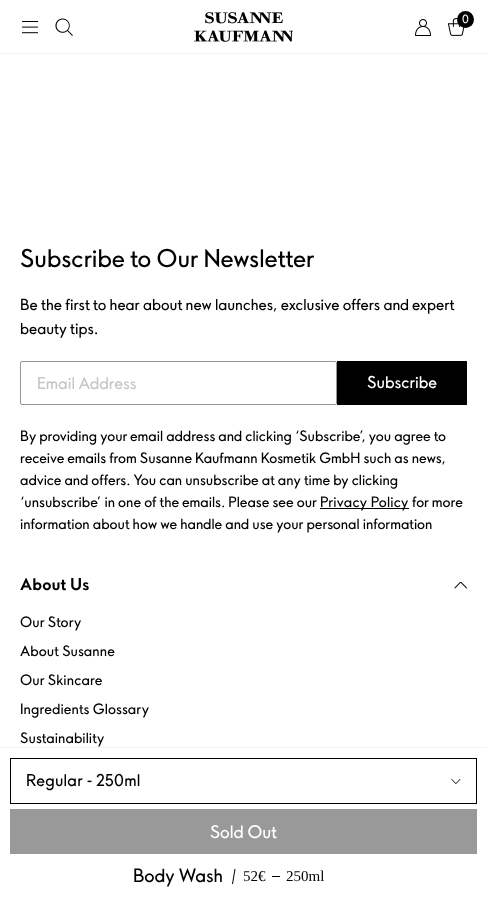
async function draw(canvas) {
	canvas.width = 487;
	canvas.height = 913;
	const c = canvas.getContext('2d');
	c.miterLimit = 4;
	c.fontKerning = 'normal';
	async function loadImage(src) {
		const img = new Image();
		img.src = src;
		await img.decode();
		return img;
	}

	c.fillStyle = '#fff';
	c.fillRect(0, 0, 487, 913);
	c.drawImage(await loadImage('img1.png'), 22, 21, 16, 13);
	c.drawImage(await loadImage('img2.png'), 55, 18, 18, 18);
	c.drawImage(await loadImage('img3.png'), 194, 12, 99, 30);
	c.drawImage(await loadImage('img4.png'), 415, 19, 16, 17);
	c.drawImage(await loadImage('img5.png'), 448, 18, 17, 18);
	c.fillStyle = '#000';
	c.beginPath();
	c.arc(465.5, 19.5, 8.5, 0, 2 * Math.PI);
	c.fill();
	c.font = '11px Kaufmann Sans';
	c.fillStyle = '#fff';
	c.fillText('0', 462, 23);
	c.fillStyle = '#f2f2f2';
	c.fillRect(0, 53, 487, 1);
	c.font = '24px Kaufmann Sans';
	c.fillStyle = '#000';
	c.fillText('Subscribe to Our Newsletter', 20, 267);
	c.font = '15px Kaufmann Sans';
	c.fillText('Be the first to hear about new launches, exclusive offers and expert', 20, 310);
	c.fillText('beauty tips.', 20, 334);
	c.beginPath();
	c.roundRect(20.5, 361.5, 316, 43, 1.5);
	c.strokeStyle = '#949596';
	c.stroke();
	c.font = '16px Kaufmann Sans';
	c.fillStyle = '#c5c6c6';
	c.fillText('Email Address', 37, 389);
	c.fillStyle = '#000';
	c.fillRect(337, 361, 130, 44);
	c.fillStyle = '#fff';
	c.fillText('Subscribe', 367, 388);
	c.font = '14px Kaufmann Sans';
	c.fillStyle = '#000';
	for (const [text, x, y] of [
		['By providing your email address and clicking ‘Subscribe’, you agree to', 20, 441],
		['receive emails from Susanne Kaufmann Kosmetik GmbH such as news,', 20, 463],
		['advice and offers. You can unsubscribe at any time by clicking', 20, 485],
		['‘unsubscribe’ in one of the emails. Please see our', 20, 507],
	]) {
		c.fillText(text, x, y);
	}
	c.fillRect(320, 508, 89, 1);
	c.letterSpacing = '0.25px';
	c.fillText('Privacy Policy', 320, 507);
	c.letterSpacing = '0px';
	c.fillText('for more', 412, 507);
	c.fillText('information about how we handle and use your personal information', 20, 529);
	c.letterSpacing = '0.1px';
	c.font = 'bold 16px Kaufmann Sans';
	c.fillText('About Us', 20, 590);
	c.drawImage(await loadImage('img6.png'), 454, 582, 13, 7);
	c.font = '14px Kaufmann Sans';
	for (const [text, x, y] of [
		['Our Story', 20, 627],
		['About Susanne', 20, 656],
		['Our Skincare', 20, 685],
		['Ingredients Glossary', 20, 714],
		['Sustainability', 20, 743],
	]) {
		c.fillText(text, x, y);
	}
	c.fillStyle = '#f2f2f2';
	c.fillRect(0, 747, 487, 1);
	c.drawImage(await loadImage('img7.png'), 451, 779, 10, 5);
	c.strokeStyle = '#000';
	c.strokeRect(10.5, 758.5, 466, 45);
	c.letterSpacing = '0.25px';
	c.font = '16px Kaufmann Sans';
	c.fillStyle = '#000';
	c.fillText('Regular - 250ml', 26, 786);
	c.fillStyle = '#999';
	c.fillRect(10, 809, 467, 45);
	c.letterSpacing = '0px';
	c.font = '17px Kaufmann Sans';
	c.fillStyle = '#fff';
	c.fillText('Sold Out', 210, 838);
	c.font = '18px Kaufmann Sans';
	c.fillStyle = '#000';
	c.fillText('Body Wash', 133, 882);
	c.beginPath();
	c.moveTo(234.5, 869);
	c.lineTo(235.5, 869);
	c.lineTo(233, 884);
	c.lineTo(232, 884);
	c.closePath();
	c.fill();
	c.font = '15px Liberation Serif';
	c.fillText('52€', 243, 881);
	c.fillRect(272, 876, 8, 1);
	c.fillText('250ml', 286, 881);
}

draw(document.querySelector('canvas'));
